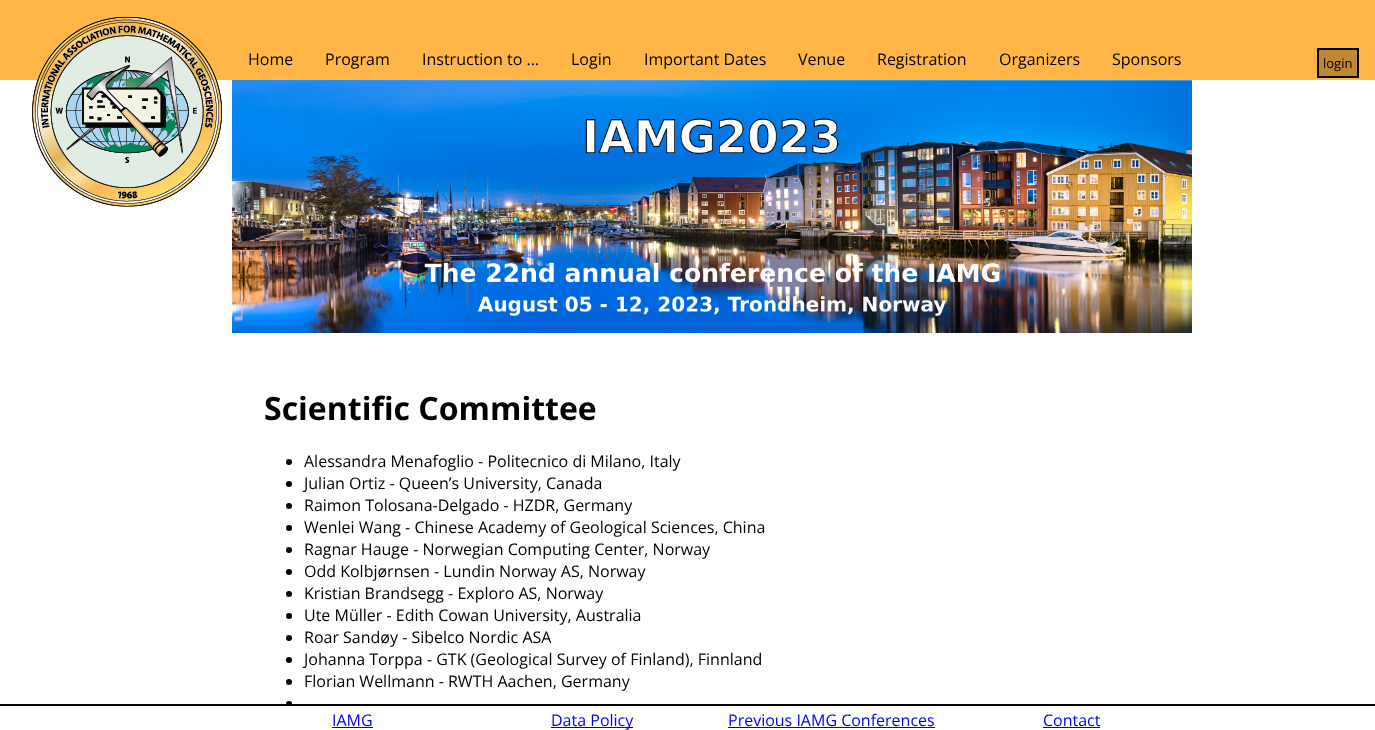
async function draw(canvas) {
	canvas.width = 1375;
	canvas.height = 730;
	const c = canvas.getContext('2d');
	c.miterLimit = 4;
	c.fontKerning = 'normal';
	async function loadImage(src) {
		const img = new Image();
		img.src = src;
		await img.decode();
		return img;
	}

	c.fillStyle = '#fff';
	c.fillRect(0, 0, 1375, 730);
	c.fillStyle = '#ffb647';
	c.fillRect(0, 0, 1375, 80);
	c.drawImage(await loadImage('img1.png'), 32, 16, 190, 191);
	c.font = '16px Open Sans';
	c.fillStyle = '#000';
	for (const [text, x, y] of [
		['Home', 248, 65],
		['Program', 325, 65],
		['Instruction to ...', 422, 65],
		['Login', 571, 65],
		['Important Dates', 644, 65],
		['Venue', 798, 65],
		['Registration', 877, 65],
		['Organizers', 999, 65],
		['Sponsors', 1112, 65],
	]) {
		c.fillText(text, x, y);
	}
	c.fillStyle = '#c08834';
	c.beginPath();
	c.rect(1318, 49, 40, 28);
	c.fill();
	c.strokeStyle = '#000';
	c.lineWidth = 2;
	c.stroke();
	c.font = '13px Open Sans';
	c.fillStyle = '#000';
	c.fillText('login', 1323, 68);
	c.drawImage(await loadImage('img2.png'), 232, 80, 960, 253);
	c.font = 'bold 32px Open Sans';
	c.fillText('Scientific Committee', 264, 420);
	c.beginPath();
	c.arc(289, 462, 3, 0, 2 * Math.PI);
	c.fill();
	c.font = '16px Open Sans';
	c.fillText('Alessandra Menafoglio - Politecnico di Milano, Italy', 304, 467);
	c.beginPath();
	c.arc(289, 484, 3, 0, 2 * Math.PI);
	c.fill();
	c.fillText('Julian Ortiz - Queen’s University, Canada', 304, 489);
	c.beginPath();
	c.arc(289, 506, 3, 0, 2 * Math.PI);
	c.fill();
	c.fillText('Raimon Tolosana-Delgado - HZDR, Germany', 304, 511);
	c.beginPath();
	c.arc(289, 528, 3, 0, 2 * Math.PI);
	c.fill();
	c.fillText('Wenlei Wang - Chinese Academy of Geological Sciences, China', 304, 533);
	c.beginPath();
	c.arc(289, 550, 3, 0, 2 * Math.PI);
	c.fill();
	c.fillText('Ragnar Hauge - Norwegian Computing Center, Norway', 304, 555);
	c.beginPath();
	c.arc(289, 572, 3, 0, 2 * Math.PI);
	c.fill();
	c.fillText('Odd Kolbjørnsen - Lundin Norway AS, Norway', 304, 577);
	c.beginPath();
	c.arc(289, 594, 3, 0, 2 * Math.PI);
	c.fill();
	c.fillText('Kristian Brandsegg - Exploro AS, Norway', 304, 599);
	c.beginPath();
	c.arc(289, 616, 3, 0, 2 * Math.PI);
	c.fill();
	c.fillText('Ute Müller - Edith Cowan University, Australia', 304, 621);
	c.beginPath();
	c.arc(289, 638, 3, 0, 2 * Math.PI);
	c.fill();
	c.fillText('Roar Sandøy - Sibelco Nordic ASA', 304, 643);
	c.beginPath();
	c.arc(289, 660, 3, 0, 2 * Math.PI);
	c.fill();
	c.fillText('Johanna Torppa - GTK (Geological Survey of Finland), Finnland', 304, 665);
	c.beginPath();
	c.arc(289, 682, 3, 0, 2 * Math.PI);
	c.fill();
	c.fillText('Florian Wellmann - RWTH Aachen, Germany', 304, 687);
	c.beginPath();
	c.arc(289, 704, 3, 0, 2 * Math.PI);
	c.fill();
	c.fillRect(0, 704, 1375, 2);
	c.fillStyle = '#fff';
	c.fillRect(286, 706, 6, 1);
	c.fillStyle = '#00f';
	c.fillText('IAMG', 332, 726);
	c.fillRect(332, 727, 41, 1);
	c.fillRect(551, 727, 82, 1);
	c.fillText('Data Policy', 551, 726);
	c.fillText('Previous IAMG Conferences', 728, 726);
	c.fillRect(728, 727, 207, 1);
	c.fillText('Contact', 1043, 726);
	c.fillRect(1043, 727, 57, 1);
}

draw(document.querySelector('canvas'));
